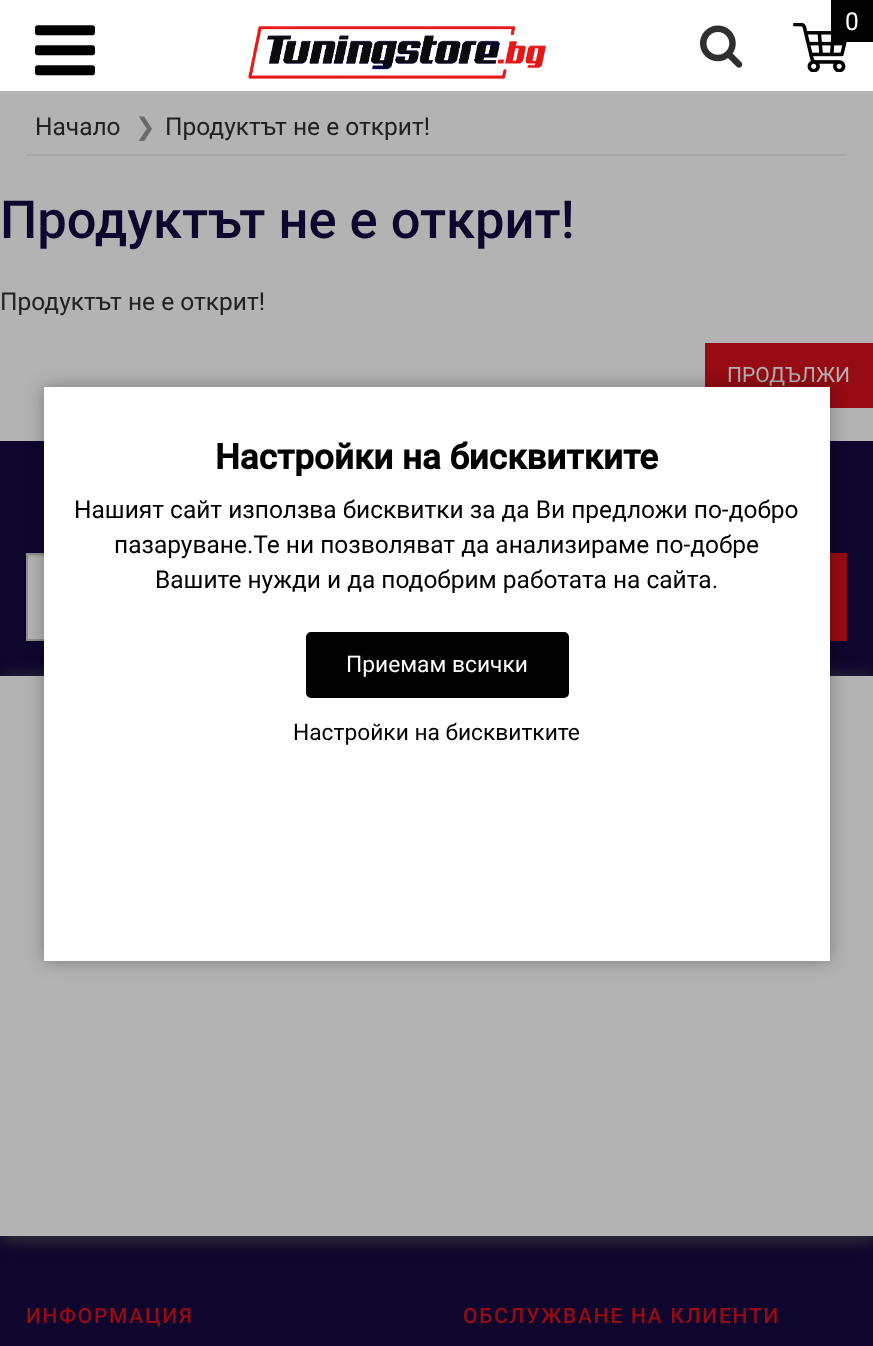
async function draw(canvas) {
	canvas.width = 873;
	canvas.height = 1346;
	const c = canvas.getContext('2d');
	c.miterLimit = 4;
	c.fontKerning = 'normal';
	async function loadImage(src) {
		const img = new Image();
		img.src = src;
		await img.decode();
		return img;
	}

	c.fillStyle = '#b3b3b3';
	c.fillRect(0, 0, 873, 1346);
	c.fillStyle = '#fff';
	c.fillRect(0, 0, 873, 91);
	c.drawImage(await loadImage('img1.png'), 793, 23, 54, 49);
	c.fillStyle = '#000';
	c.fillRect(831, 0, 42, 42);
	c.font = '24.5px Roboto';
	c.fillStyle = '#fff';
	c.fillText('0', 845, 30);
	c.drawImage(await loadImage('img2.png'), 35, 25, 60, 51);
	c.drawImage(await loadImage('img3.png'), 248, 26, 298, 53);
	c.drawImage(await loadImage('img4.png'), 700, 25, 43, 43);
	c.fillStyle = '#a7a7a7';
	c.fillRect(26, 154, 821, 2);
	c.fillStyle = '#212121';
	c.fillText('Начало', 35, 135);
	c.font = '24.5px DejaVu Sans';
	c.fillStyle = '#6b6b6b';
	c.fillText('❯', 135, 135);
	c.font = '24.5px Roboto';
	c.fillStyle = '#212121';
	c.fillText('Продуктът не е открит!', 165, 135);
	c.font = '500 52.5px Roboto';
	c.fillStyle = '#0f062e';
	c.fillText('Продуктът не е открит!', 0, 238);
	c.font = '24.5px Roboto';
	c.fillStyle = '#212121';
	c.fillText('Продуктът не е открит!', 0, 310);
	c.fillStyle = '#960b14';
	c.fillRect(705, 343, 168, 65);
	c.font = '21px Roboto';
	c.fillStyle = '#b3b3b3';
	c.fillText('ПРОДЪЛЖИ', 727, 382);
	for (const [x, y, w, h, color] of [
		[0, 441, 873, 235, '#0f062e'],
		[28, 557, 16, 82, '#b3b3b3'],
		[28, 555, 16, 2, '#a5a5a5'],
	]) {
		c.fillStyle = color;
		c.fillRect(x, y, w, h);
	}
	c.strokeStyle = '#8f8f8f';
	c.lineWidth = 2;
	c.strokeRect(27, 554, 819, 86);
	c.fillStyle = '#960b14';
	c.fillRect(830, 553, 17, 88);
	c.fillStyle = '#0000004d';
	c.filter = 'blur(9px)';
	c.beginPath();
	c.rect(44, 387, 786, 574);
	c.fill();
	c.filter = 'none';
	c.fillStyle = '#0f062e';
	c.fillRect(0, 1236, 873, 110);
	c.save();
	c.beginPath();
	c.moveTo(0, 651);
	c.lineTo(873, 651);
	c.lineTo(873, 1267);
	c.lineTo(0, 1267);
	c.closePath();
	c.moveTo(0, 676);
	c.lineTo(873, 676);
	c.lineTo(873, 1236);
	c.lineTo(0, 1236);
	c.closePath();
	c.clip('evenodd');
	c.fillStyle = '#3b3b3b';
	c.filter = 'blur(9px)';
	c.beginPath();
	c.rect(2, 679, 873, 560);
	c.fill();
	c.filter = 'none';
	c.restore();
	c.fillStyle = '#fff';
	c.fillRect(44, 387, 786, 574);
	c.font = 'bold 35px Roboto';
	c.fillStyle = '#000';
	c.fillText('Настройки на бисквитките', 215, 469);
	c.font = '24.5px Roboto';
	for (const [text, x, y] of [
		['Нашият сайт използва бисквитки за да Ви предложи по-добро', 74, 518],
		['пазаруване.Те ни позволяват да анализираме по-добре', 114, 553],
		['Вашите нужди и да подобрим работата на сайта.', 155, 588],
	]) {
		c.fillText(text, x, y);
	}
	c.beginPath();
	c.roundRect(307, 633, 261, 64, 4);
	c.fill();
	c.strokeStyle = '#000';
	c.stroke();
	c.font = '22.75px Roboto';
	c.fillStyle = '#fff';
	c.fillText('Приемам всички', 346, 672);
	c.fillStyle = '#000';
	c.fillText('Настройки на бисквитките', 293, 740);
	c.letterSpacing = '1.75px';
	c.font = '500 21px Roboto';
	c.fillStyle = '#960b14';
	c.fillText('ИНФОРМАЦИЯ', 26, 1323);
	c.fillText('ОБСЛУЖВАНЕ НА КЛИЕНТИ', 463, 1323);
}

draw(document.querySelector('canvas'));
